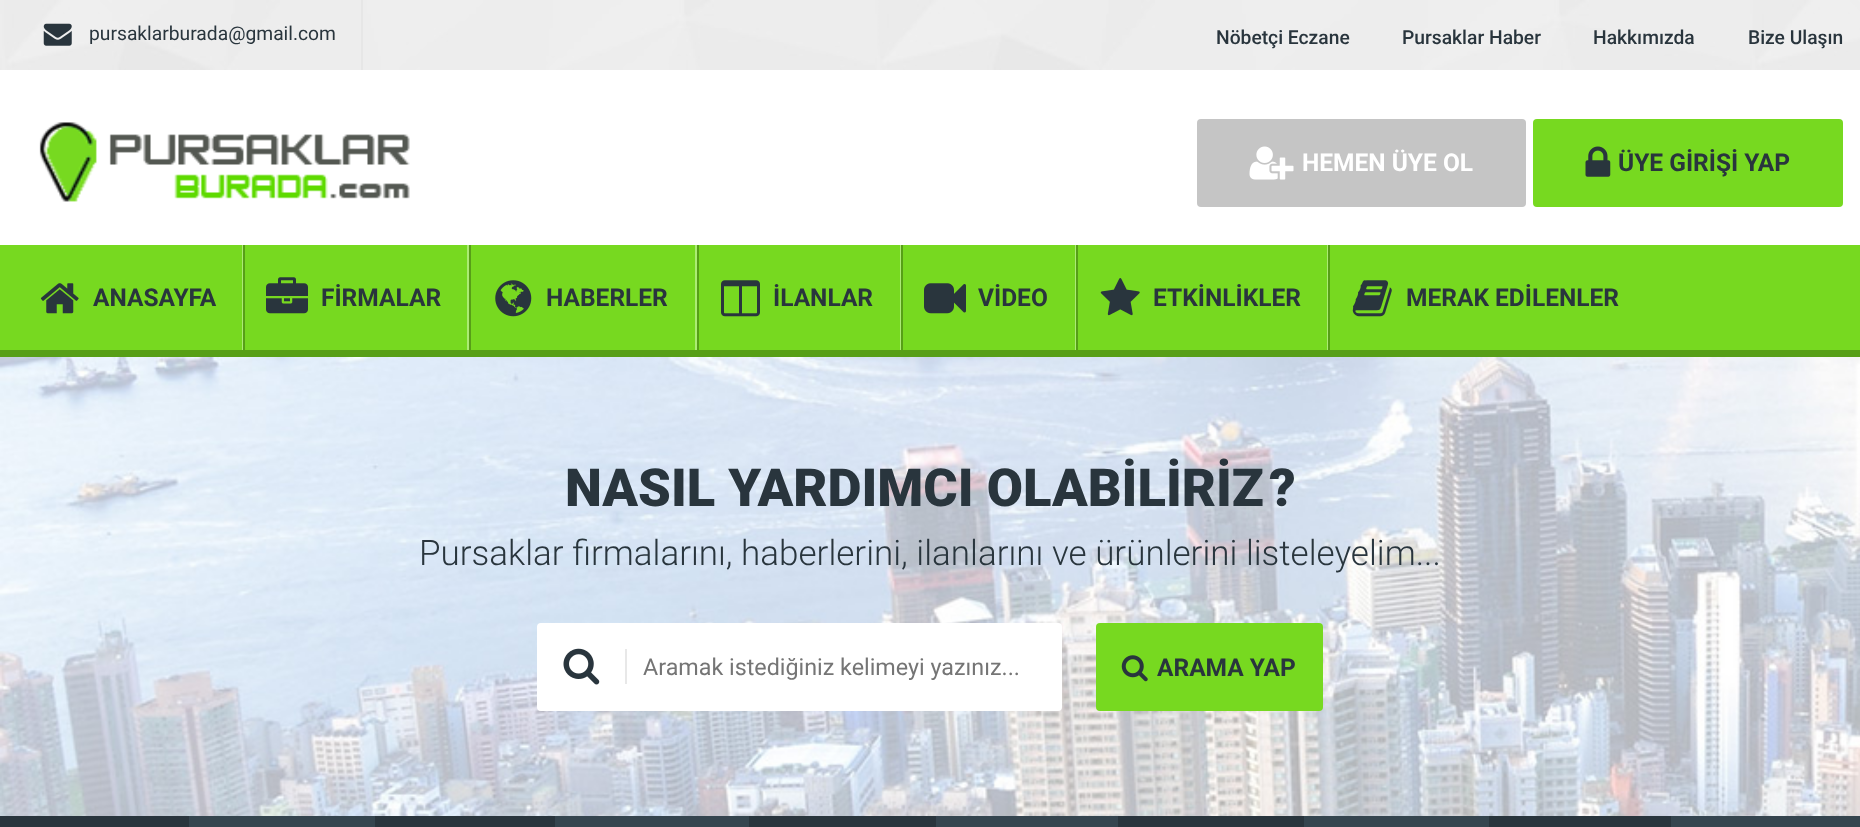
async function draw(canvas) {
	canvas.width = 1860;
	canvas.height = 827;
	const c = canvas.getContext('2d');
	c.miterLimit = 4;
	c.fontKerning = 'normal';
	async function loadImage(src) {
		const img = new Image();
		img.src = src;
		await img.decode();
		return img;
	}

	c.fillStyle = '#fff';
	c.fillRect(0, 0, 1860, 827);
	c.drawImage(await loadImage('img1.png'), 0, 0, 1860, 70);
	c.fillStyle = '#e6e6e6';
	c.fillRect(361, 0, 2, 70);
	c.drawImage(await loadImage('img2.png'), 43, 23, 29, 23);
	c.font = '19.25px Roboto';
	c.fillStyle = '#29353d';
	c.fillText('pursaklarburada@gmail.com', 89, 40);
	c.font = '500 19.25px Roboto';
	for (const [text, x, y] of [
		['Nöbetçi Eczane', 1216, 44],
		['Pursaklar Haber', 1402, 44],
		['Hakkımızda', 1593, 44],
		['Bize Ulaşın', 1748, 44],
	]) {
		c.fillText(text, x, y);
	}
	c.drawImage(await loadImage('img3.png'), 39, 122, 371, 80);
	c.fillStyle = '#c5c5c5';
	c.beginPath();
	c.roundRect(1197, 119, 329, 88, 4);
	c.fill();
	c.drawImage(await loadImage('img4.png'), 1249, 146, 45, 34);
	c.font = 'bold 24.5px Roboto';
	c.fillStyle = '#fff';
	c.fillText('HEMEN ÜYE OL', 1302, 171);
	c.fillStyle = '#77d920';
	c.beginPath();
	c.roundRect(1533, 119, 310, 88, 4);
	c.fill();
	c.drawImage(await loadImage('img5.png'), 1585, 146, 26, 31);
	c.fillStyle = '#29353d';
	c.fillText('ÜYE GİRİŞİ YAP', 1618, 171);
	for (const [x, y, w, h, color] of [
		[0, 245, 1860, 105, '#77d920'],
		[0, 350, 1860, 7, '#579f17'],
		[242, 245, 1, 105, '#aceb74'],
	]) {
		c.fillStyle = color;
		c.fillRect(x, y, w, h);
	}
	c.drawImage(await loadImage('img6.png'), 40, 283, 39, 31);
	c.fillStyle = '#29353d';
	c.fillText('ANASAYFA', 93, 306);
	c.fillStyle = '#aceb74';
	c.fillRect(467, 245, 2, 105);
	c.fillStyle = '#579f17';
	c.fillRect(243, 245, 2, 105);
	c.drawImage(await loadImage('img7.png'), 266, 277, 42, 37);
	c.fillStyle = '#29353d';
	c.fillText('FİRMALAR', 321, 306);
	c.fillStyle = '#aceb74';
	c.fillRect(695, 245, 2, 105);
	c.fillStyle = '#579f17';
	c.fillRect(469, 245, 2, 105);
	c.drawImage(await loadImage('img8.png'), 495, 280, 37, 37);
	c.fillStyle = '#29353d';
	c.fillText('HABERLER', 546, 306);
	c.fillStyle = '#aceb74';
	c.fillRect(900, 245, 1, 105);
	c.fillStyle = '#579f17';
	c.fillRect(697, 245, 2, 105);
	c.drawImage(await loadImage('img9.png'), 721, 280, 39, 37);
	c.fillStyle = '#29353d';
	c.fillText('İLANLAR', 773, 306);
	c.fillStyle = '#aceb74';
	c.fillRect(1075, 245, 1, 105);
	c.fillStyle = '#579f17';
	c.fillRect(901, 245, 2, 105);
	c.drawImage(await loadImage('img10.png'), 924, 283, 42, 31);
	c.fillStyle = '#29353d';
	c.fillText('VİDEO', 978, 306);
	c.fillStyle = '#aceb74';
	c.fillRect(1327, 245, 1, 105);
	c.fillStyle = '#579f17';
	c.fillRect(1076, 245, 2, 105);
	c.drawImage(await loadImage('img11.png'), 1100, 278, 40, 38);
	c.fillStyle = '#29353d';
	c.fillText('ETKİNLİKLER', 1153, 306);
	c.fillStyle = '#579f17';
	c.fillRect(1328, 245, 2, 105);
	c.drawImage(await loadImage('img12.png'), 1352, 280, 40, 37);
	c.fillStyle = '#29353d';
	c.fillText('MERAK EDİLENLER', 1406, 306);
	c.drawImage(await loadImage('img13.png'), 0, 357, 1860, 459);
	c.font = '900 52.5px Roboto';
	c.fillText('NASIL YARDIMCI OLABİLİRİZ', 565, 506);
	c.fillText('?', 1269, 506);
	c.font = '300 35px Roboto';
	c.fillText('Pursaklar firmalarını, haberlerini, ilanlarını ve ürünlerini listeleyelim...', 419, 565);
	c.fillStyle = '#fff';
	c.beginPath();
	c.roundRect(537, 623, 525, 88, 4);
	c.fill();
	c.fillStyle = '#e8e8e8';
	c.fillRect(625, 649, 2, 35);
	c.drawImage(await loadImage('img14.png'), 563, 648, 37, 37);
	c.font = '23.3px Roboto';
	c.fillStyle = '#757575';
	c.fillText('Aramak istediğiniz kelimeyi yazınız...', 643, 675);
	c.fillStyle = '#77d920';
	c.beginPath();
	c.roundRect(1096, 623, 227, 88, 4);
	c.fill();
	c.drawImage(await loadImage('img15.png'), 1121, 655, 27, 27);
	c.font = 'bold 24.5px Roboto';
	c.fillStyle = '#29353d';
	c.fillText('ARAMA YAP', 1157, 676);
	for (const [x, y, w, h, color] of [
		[0, 816, 189, 11, '#29353d'],
		[189, 816, 186, 11, '#35454f'],
		[375, 816, 180, 11, '#29353d'],
		[555, 816, 194, 11, '#35454f'],
		[749, 816, 187, 11, '#29353d'],
		[936, 816, 182, 11, '#35454f'],
		[1118, 816, 186, 11, '#29353d'],
		[1304, 816, 185, 11, '#35454f'],
		[1489, 816, 182, 11, '#29353d'],
		[1671, 816, 189, 11, '#35454f'],
	]) {
		c.fillStyle = color;
		c.fillRect(x, y, w, h);
	}
}

draw(document.querySelector('canvas'));
